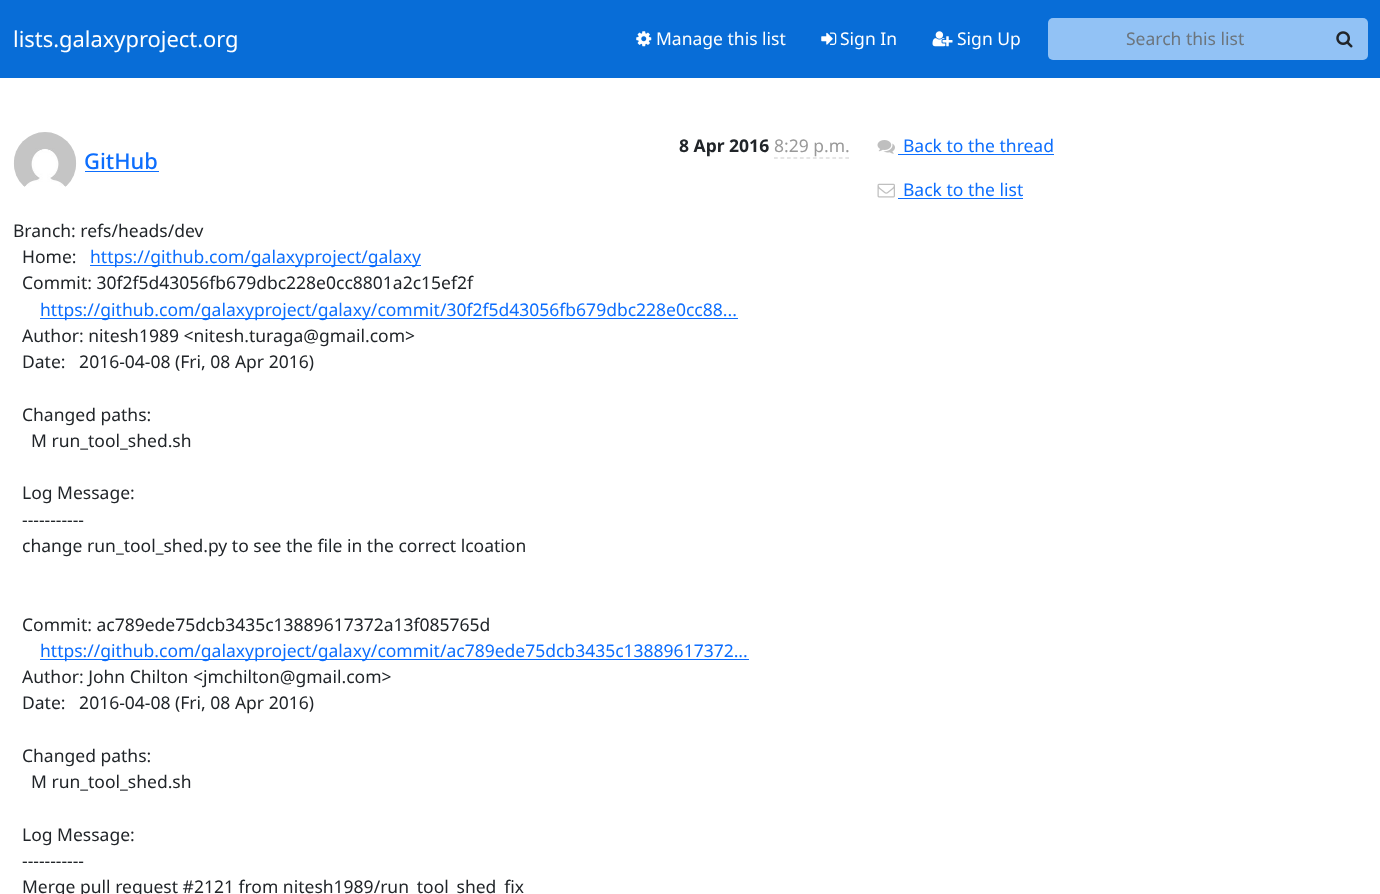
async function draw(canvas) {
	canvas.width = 1380;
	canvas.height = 894;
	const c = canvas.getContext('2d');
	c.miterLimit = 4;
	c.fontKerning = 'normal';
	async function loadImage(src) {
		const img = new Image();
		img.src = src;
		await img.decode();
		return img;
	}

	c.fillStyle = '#fff';
	c.fillRect(0, 0, 1380, 894);
	c.fillStyle = '#086dd7';
	c.fillRect(0, 0, 1380, 78);
	c.font = '21.9px Noto Sans';
	c.fillStyle = '#fff';
	c.fillText('lists.galaxyproject.org', 13, 47);
	c.drawImage(await loadImage('img1.png'), 636, 31, 16, 16);
	c.font = '17.5px Noto Sans';
	c.fillText('Manage this list', 656, 45);
	c.drawImage(await loadImage('img2.png'), 821, 32, 16, 13);
	c.fillText('Sign In', 840, 45);
	c.drawImage(await loadImage('img3.png'), 932, 31, 21, 16);
	c.fillText('Sign Up', 957, 45);
	c.fillStyle = '#92c2f5';
	c.beginPath();
	c.roundRect(1048, 18, 276, 42, [5, 0, 0, 5]);
	c.fill();
	c.fillStyle = '#6c757d';
	c.fillText('Search this list', 1126, 45);
	c.fillStyle = '#92c2f5';
	c.beginPath();
	c.roundRect(1323, 18, 45, 42, [0, 5, 5, 0]);
	c.fill();
	c.drawImage(await loadImage('img4.png'), 1336, 31, 17, 17);
	c.font = 'bold 17.5px Noto Sans';
	c.fillStyle = '#212529';
	c.fillText('8 Apr 2016', 679, 152);
	c.font = '17.5px Noto Sans';
	c.fillStyle = '#999';
	c.fillText('8:29 p.m.', 774, 152);
	c.beginPath();
	c.moveTo(774, 158);
	c.lineTo(849, 158);
	c.strokeStyle = '#ccc';
	c.lineWidth = 1.2;
	c.setLineDash([3.75, 2.73]);
	c.stroke();
	c.drawImage(await loadImage('img5.png'), 13, 132, 64, 55);
	c.font = '500 21.9px Noto Sans';
	c.fillStyle = '#0d6efd';
	c.fillText('GitHub', 84, 169);
	c.fillRect(85, 171, 74, 1);
	c.font = '17.5px Noto Sans';
	c.fillStyle = '#212529';
	c.fillText('Branch: refs/heads/dev', 13, 237);
	c.fillText('Home:', 22, 263);
	c.fillStyle = '#0d6efd';
	c.fillRect(90, 265, 331, 1);
	c.fillText('https://github.com/galaxyproject/galaxy', 90, 263);
	c.fillStyle = '#212529';
	c.fillText('Commit: 30f2f5d43056fb679dbc228e0cc8801a2c15ef2f', 22, 289);
	c.fillStyle = '#0d6efd';
	c.fillRect(40, 318, 698, 1);
	c.fillText('https://github.com/galaxyproject/galaxy/commit/30f2f5d43056fb679dbc228e0cc88...', 40, 316);
	c.fillStyle = '#212529';
	for (const [text, x, y] of [
		['Author: nitesh1989 <nitesh.turaga@gmail.com>', 22, 342],
		['Date:   2016-04-08 (Fri, 08 Apr 2016)', 22, 368],
		['Changed paths:', 22, 421],
		['M run_tool_shed.sh', 31, 447],
		['Log Message:', 22, 499],
		['-----------', 22, 526],
		['change run_tool_shed.py to see the file in the correct lcoation', 22, 552],
		['Commit: ac789ede75dcb3435c13889617372a13f085765d', 22, 631],
	]) {
		c.fillText(text, x, y);
	}
	c.fillStyle = '#0d6efd';
	c.fillRect(40, 659, 709, 1);
	c.fillText('https://github.com/galaxyproject/galaxy/commit/ac789ede75dcb3435c13889617372...', 40, 657);
	c.fillStyle = '#212529';
	for (const [text, x, y] of [
		['Author: John Chilton <jmchilton@gmail.com>', 22, 683],
		['Date:   2016-04-08 (Fri, 08 Apr 2016)', 22, 709],
		['Changed paths:', 22, 762],
		['M run_tool_shed.sh', 31, 788],
		['Log Message:', 22, 841],
		['-----------', 22, 867],
		['Merge pull request #2121 from nitesh1989/run_tool_shed_fix', 22, 893],
	]) {
		c.fillText(text, x, y);
	}
	c.drawImage(await loadImage('img6.png'), 877, 140, 18, 14);
	c.fillStyle = '#0d6efd';
	c.fillText('Back to the thread', 903, 152);
	c.fillRect(898, 154, 156, 1);
	c.drawImage(await loadImage('img7.png'), 877, 183, 18, 15);
	c.fillText('Back to the list', 903, 196);
	c.fillRect(898, 198, 125, 1);
}

draw(document.querySelector('canvas'));
